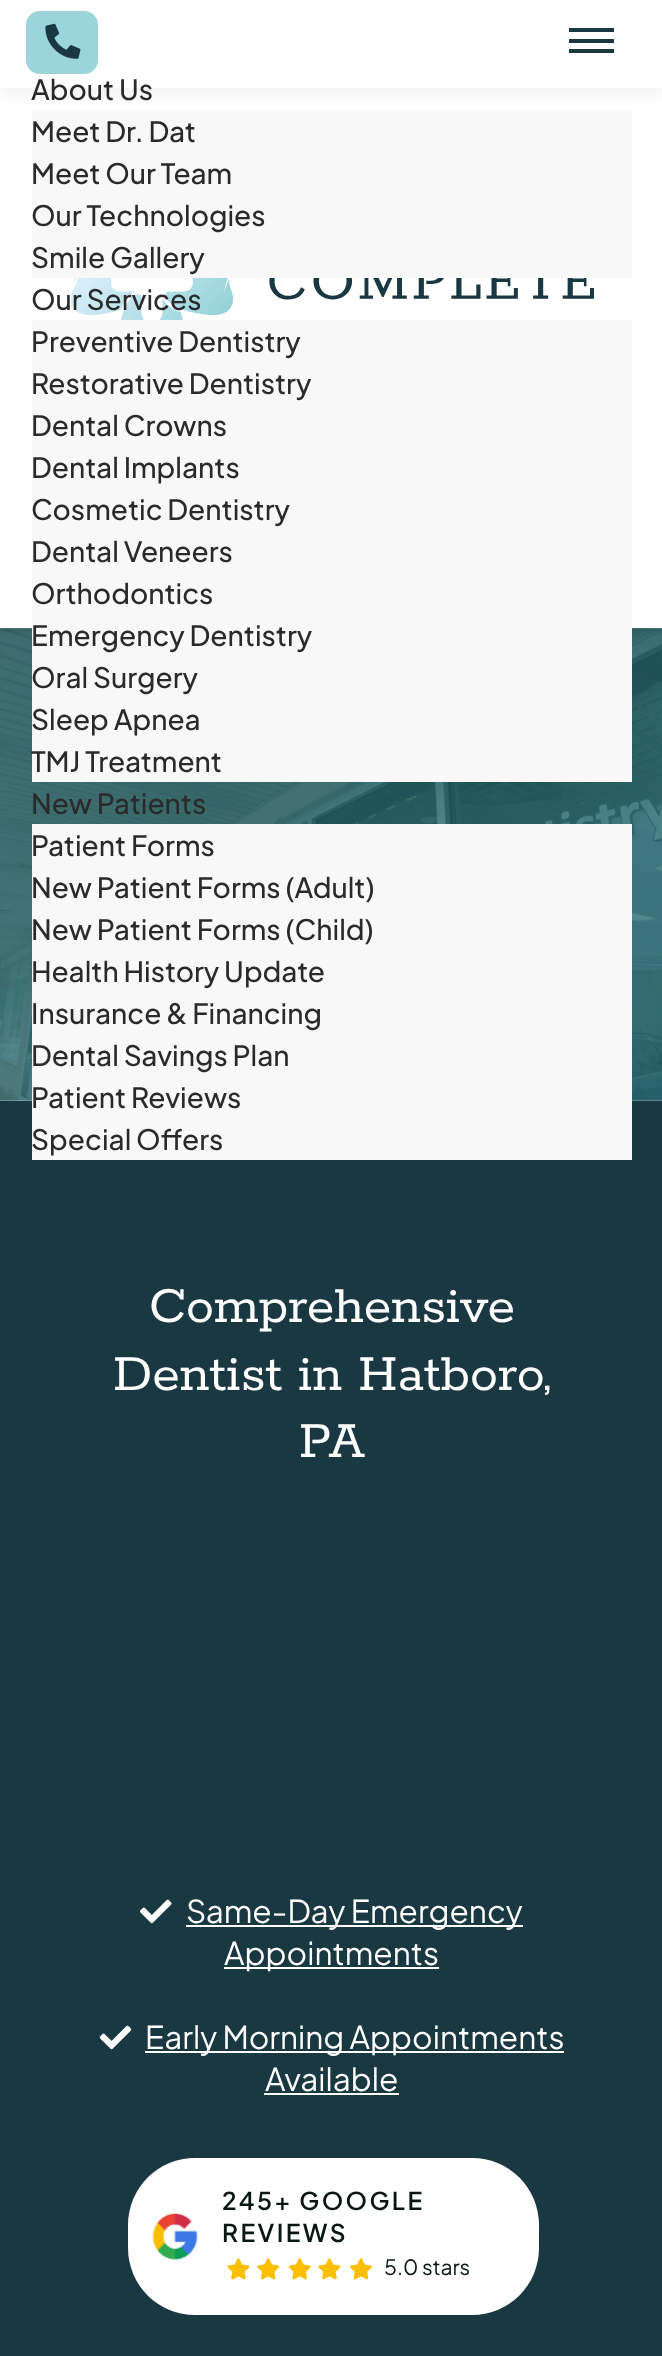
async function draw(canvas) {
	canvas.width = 662;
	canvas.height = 2356;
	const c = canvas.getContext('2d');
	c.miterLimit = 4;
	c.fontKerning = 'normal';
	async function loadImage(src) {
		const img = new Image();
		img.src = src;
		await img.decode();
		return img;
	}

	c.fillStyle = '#fff';
	c.fillRect(0, 0, 662, 2356);
	c.drawImage(await loadImage('img3.png'), 0, 628, 662, 473);
	c.fillStyle = '#0000004d';
	c.filter = 'blur(4.5px)';
	c.beginPath();
	c.rect(0, 82, 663, 546);
	c.fill();
	c.filter = 'none';
	c.fillStyle = '#fff';
	c.fillRect(0, 88, 662, 540);
	c.fillStyle = '#0000000d';
	c.filter = 'blur(9px)';
	c.beginPath();
	c.rect(0, 9, 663, 87);
	c.fill();
	c.filter = 'none';
	c.fillStyle = '#fff';
	c.fillRect(0, 1, 662, 87);
	c.fillStyle = '#9bd4db';
	c.beginPath();
	c.roundRect(26, 11, 72, 63, 14);
	c.fill();
	c.drawImage(await loadImage('img1.png'), 45, 23, 36, 36);
	for (const [x, y, w, h, color] of [
		[0, 628, 662, 1, '#ffffff26'],
		[569, 28, 45, 4, '#1a3842'],
		[569, 39, 45, 4, '#1a3842'],
		[569, 49, 45, 4, '#1a3842'],
	]) {
		c.fillStyle = color;
		c.fillRect(x, y, w, h);
	}
	c.font = '500 28px Plus Jakarta Sans';
	c.fillStyle = '#2a2a2c';
	c.fillText('About Us', 31, 100);
	c.fillStyle = '#f8f8f8';
	c.fillRect(32, 110, 600, 168);
	c.fillStyle = '#2a2a2c';
	for (const [text, x, y] of [
		['Meet Dr. Dat', 31, 142],
		['Meet Our Team', 31, 184],
		['Our Technologies', 31, 226],
		['Smile Gallery', 31, 268],
	]) {
		c.fillText(text, x, y);
	}
	c.drawImage(await loadImage('img2.png'), 70, 278, 524, 42);
	c.fillText('Our Services', 31, 310);
	c.fillStyle = '#f8f8f8';
	c.fillRect(32, 320, 600, 462);
	c.fillStyle = '#2a2a2c';
	for (const [text, x, y] of [
		['Preventive Dentistry', 31, 352],
		['Restorative Dentistry', 31, 394],
		['Dental Crowns', 31, 436],
		['Dental Implants', 31, 478],
		['Cosmetic Dentistry', 31, 520],
		['Dental Veneers', 31, 562],
		['Orthodontics', 31, 604],
		['Emergency Dentistry', 31, 646],
		['Oral Surgery', 31, 688],
		['Sleep Apnea', 31, 730],
		['TMJ Treatment', 31, 772],
		['New Patients', 31, 814],
	]) {
		c.fillText(text, x, y);
	}
	c.fillStyle = '#1a3842';
	c.fillRect(0, 1101, 662, 1255);
	c.fillStyle = '#f8f8f8';
	c.fillRect(32, 824, 600, 336);
	c.fillStyle = '#2a2a2c';
	for (const [text, x, y] of [
		['Patient Forms', 31, 856],
		['New Patient Forms (Adult)', 31, 898],
		['New Patient Forms (Child)', 31, 940],
		['Health History Update', 31, 982],
		['Insurance & Financing', 31, 1024],
		['Dental Savings Plan', 31, 1066],
		['Patient Reviews', 31, 1108],
		['Special Offers', 31, 1150],
	]) {
		c.fillText(text, x, y);
	}
	c.font = '56px Rokkitt';
	c.fillStyle = '#fff';
	for (const [text, x, y] of [
		['Comprehensive', 149, 1322],
		['Dentist in Hatboro,', 113, 1390],
		['PA', 299, 1457],
	]) {
		c.fillText(text, x, y);
	}
	c.drawImage(await loadImage('img4.png'), 140, 1899, 32, 25);
	c.fillRect(186, 1925, 337, 2);
	c.font = '31.5px Plus Jakarta Sans';
	c.fillText('Same-Day Emergency', 186, 1923);
	c.fillRect(224, 1967, 215, 2);
	c.fillText('Appointments', 224, 1965);
	c.drawImage(await loadImage('img5.png'), 99, 2025, 33, 25);
	c.fillRect(145, 2051, 419, 2);
	c.fillText('Early Morning Appointments', 145, 2049);
	c.fillText('Available', 265, 2091);
	c.fillRect(264, 2093, 135, 2);
	c.beginPath();
	c.roundRect(128, 2158, 411, 157, 67);
	c.fill();
	c.drawImage(await loadImage('img6.png'), 152, 2213, 46, 47);
	c.letterSpacing = '2.4px';
	c.font = '600 24.5px Plus Jakarta Sans';
	c.fillStyle = '#091713';
	c.fillText('245+ GOOGLE', 222, 2210);
	c.fillText('REVIEWS', 222, 2242);
	c.drawImage(await loadImage('img7.png'), 227, 2258, 23, 22);
	c.drawImage(await loadImage('img8.png'), 257, 2258, 23, 22);
	c.drawImage(await loadImage('img9.png'), 288, 2258, 23, 22);
	c.drawImage(await loadImage('img7.png'), 318, 2258, 23, 22);
	c.drawImage(await loadImage('img10.png'), 350, 2258, 22, 22);
	c.letterSpacing = '0px';
	c.font = '21px Plus Jakarta Sans';
	c.fillText('5.0 stars', 384, 2275);
}

draw(document.querySelector('canvas'));
